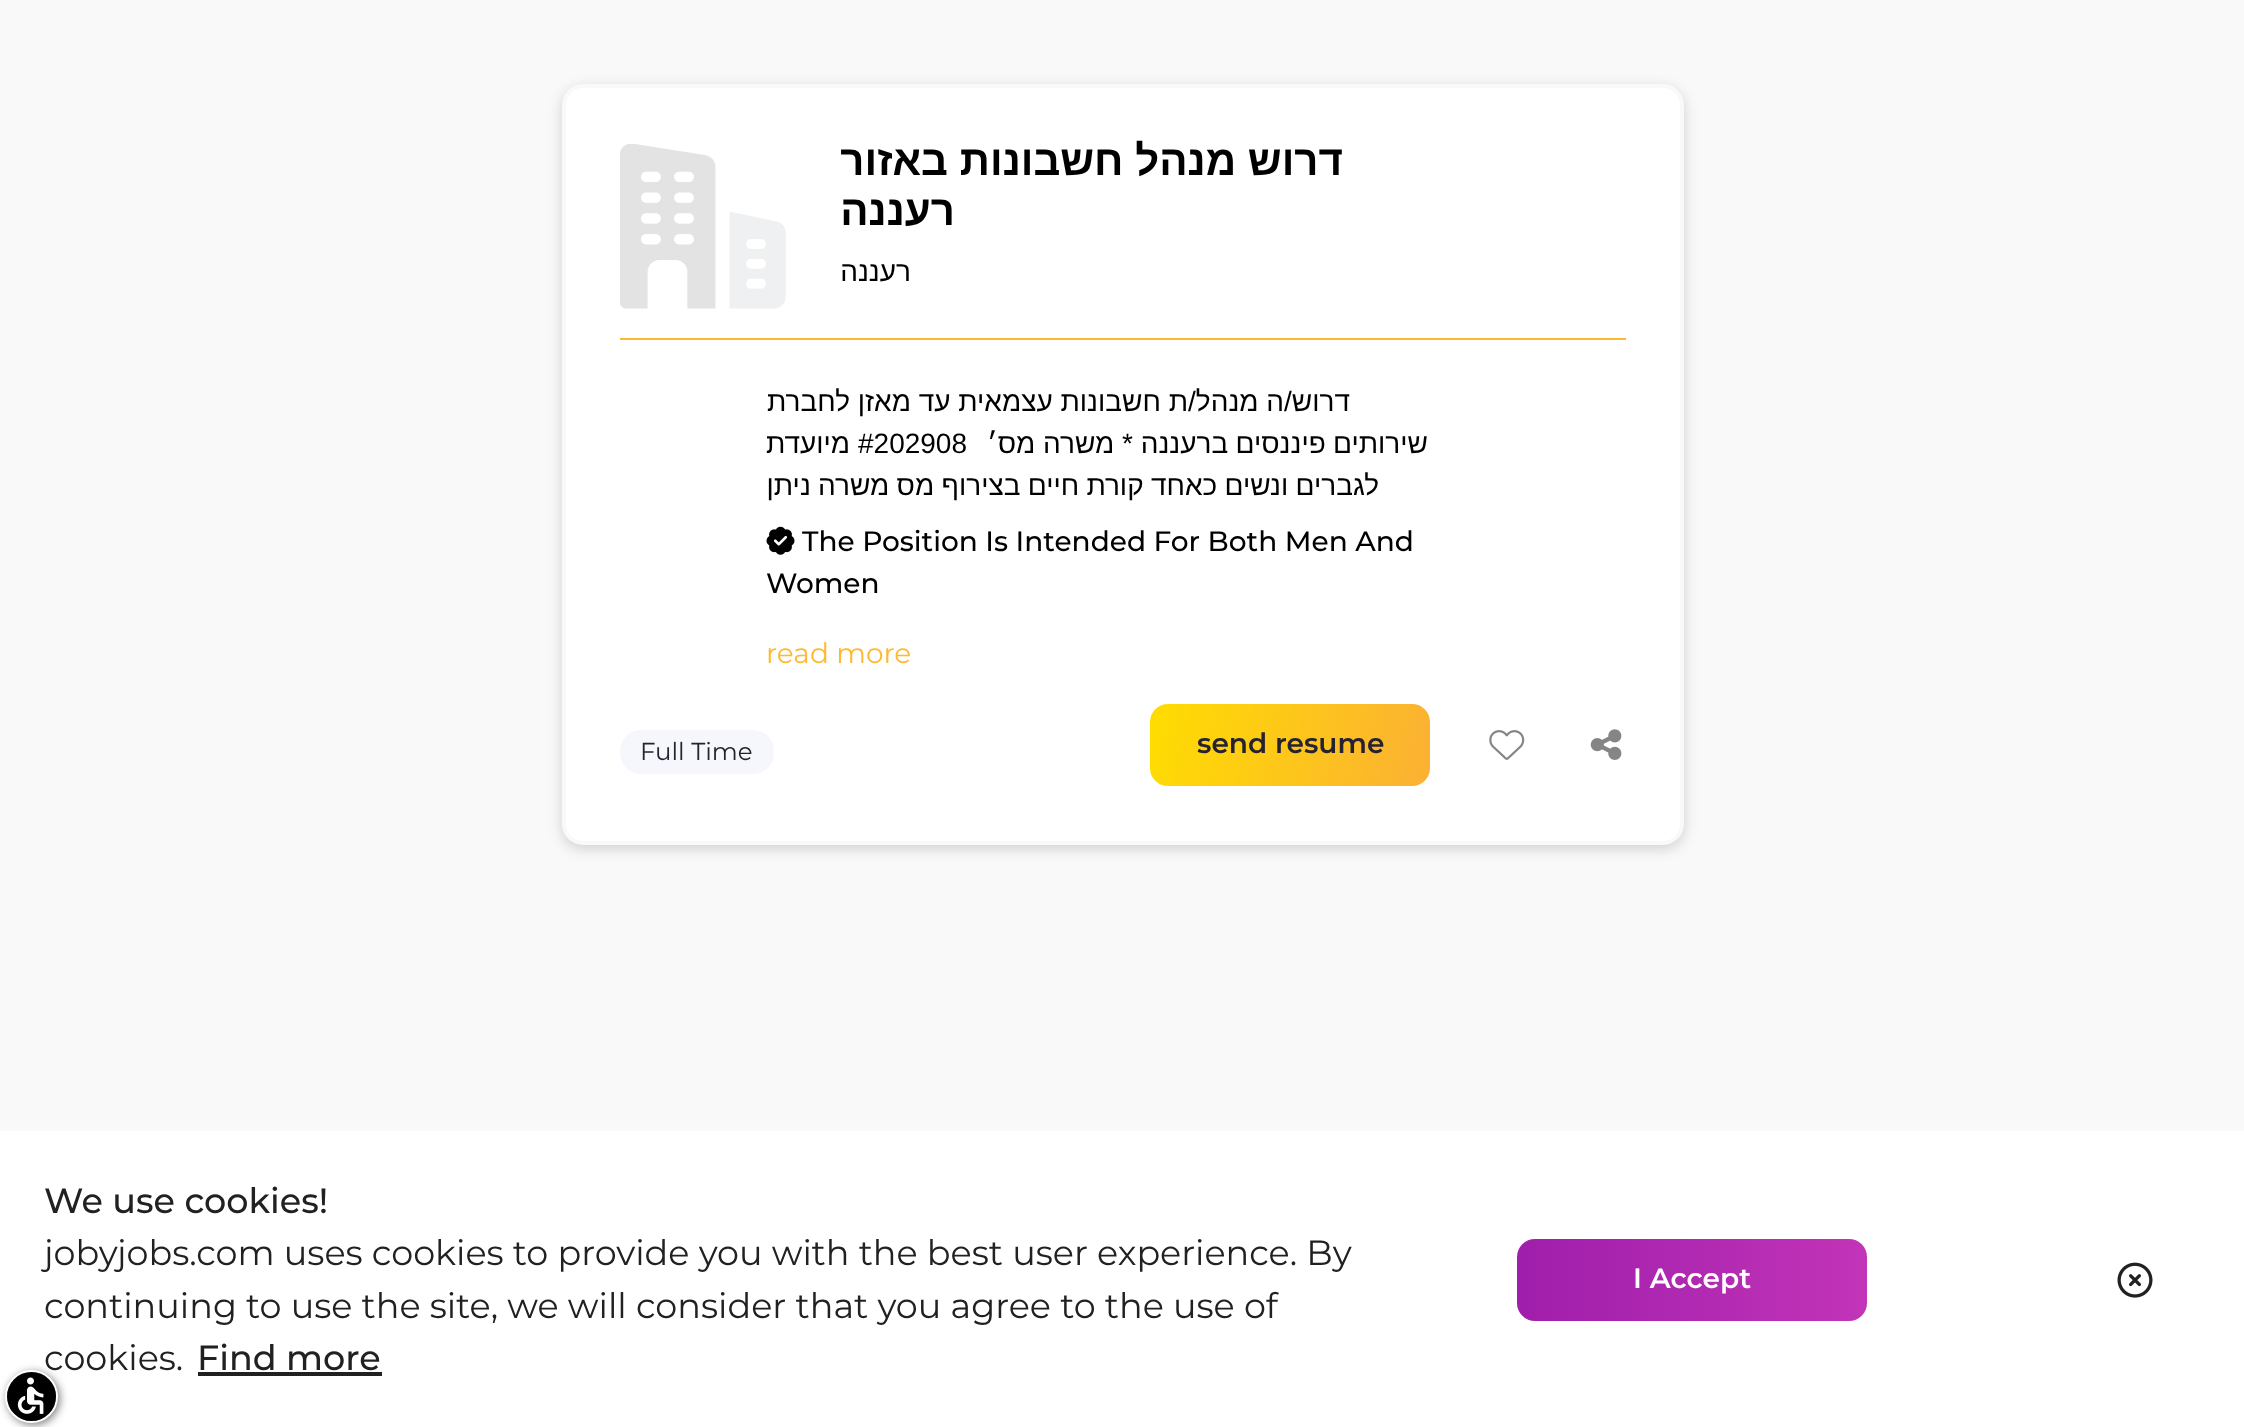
async function draw(canvas) {
	canvas.width = 2244;
	canvas.height = 1427;
	const c = canvas.getContext('2d');
	c.miterLimit = 4;
	c.fontKerning = 'normal';
	async function loadImage(src) {
		const img = new Image();
		img.src = src;
		await img.decode();
		return img;
	}
	let gradient;

	c.fillStyle = '#f9f9f9';
	c.fillRect(0, 0, 2244, 1427);
	c.fillStyle = '#00000029';
	c.filter = 'blur(7px)';
	c.beginPath();
	c.roundRect(562, 88, 1122, 761, 21);
	c.fill();
	c.filter = 'none';
	c.fillStyle = '#fff';
	c.beginPath();
	c.roundRect(564, 86, 1118, 757, 19);
	c.fill();
	c.strokeStyle = '#f9f9f9';
	c.lineWidth = 4;
	c.stroke();
	c.drawImage(await loadImage('img1.png'), 620, 144, 166, 165);
	c.direction = 'rtl';
	c.font = 'bold 42px Liberation Sans';
	c.fillStyle = '#000';
	for (const [text, x, y] of [
		['באזור', 948, 175],
		['דרוש מנהל חשבונות', 1343, 175],
		['רעננה', 955, 225],
	]) {
		c.fillText(text, x, y);
	}
	c.font = '28px Liberation Sans';
	c.fillText('רעננה', 911, 281);
	c.fillStyle = '#ffb92e';
	c.fillRect(620, 338, 1006, 2);
	c.fillStyle = '#000';
	c.fillText('דרוש/ה מנהל/ת חשבונות עצמאית עד מאזן לחברת', 1350, 411);
	c.fillText('מיועדת', 850, 453);
	c.direction = 'ltr';
	c.fillText('#202908', 858, 453);
	c.direction = 'rtl';
	c.fillText('* משרה מס׳', 1133, 453);
	c.wordSpacing = '-0.5px';
	c.fillText('שירותים פיננסים ברעננה', 1428, 453);
	c.fillText('לגברים ונשים כאחד קורת חיים בצירוף מס משרה ניתן', 1379, 495);
	c.drawImage(await loadImage('img2.png'), 766, 526, 29, 29);
	c.wordSpacing = '0px';
	c.direction = 'ltr';
	c.font = '500 28px Montserrat';
	c.fillText('The Position Is Intended For Both Men And', 802, 551);
	c.fillText('Women', 766, 593);
	c.font = '28px Montserrat';
	c.fillStyle = '#ffb92e';
	c.fillText('read more', 766, 663);
	c.fillStyle = '#f5f7fc';
	c.beginPath();
	c.roundRect(620, 730, 154, 44, 21);
	c.fill();
	c.font = '24.5px Montserrat';
	c.fillStyle = '#262230';
	c.fillText('Full Time', 640, 760);
	gradient = c.createLinearGradient(1148, 712, 1432, 777);
	gradient.addColorStop(0, '#fd0');
	gradient.addColorStop(1, '#fbb034');
	c.fillStyle = gradient;
	c.beginPath();
	c.roundRect(1150, 704, 280, 82, 18);
	c.fill();
	c.font = '600 28px Montserrat';
	c.fillStyle = '#262230';
	c.fillText('send resume', 1197, 753);
	c.drawImage(await loadImage('img3.png'), 1489, 730, 36, 30);
	c.drawImage(await loadImage('img4.png'), 1590, 729, 32, 31);
	c.fillStyle = '#fff';
	c.fillRect(0, 1131, 2244, 296);
	c.font = '500 35px Montserrat';
	c.fillStyle = '#212121';
	c.fillText('We use cookies!', 44, 1213);
	c.font = '35px Montserrat';
	for (const [text, x, y] of [
		['jobyjobs.com uses cookies to provide you with the best user experience. By', 44, 1265],
		['continuing to use the site, we will consider that you agree to the use of', 44, 1318],
		['cookies.', 44, 1370],
	]) {
		c.fillText(text, x, y);
	}
	c.font = '500 35px Montserrat';
	c.fillText('Find more', 197, 1370);
	c.fillRect(198, 1372, 184, 4);
	gradient = c.createLinearGradient(1517, 1280, 1867, 1280);
	gradient.addColorStop(0, '#9f1eab');
	gradient.addColorStop(1, '#c234b8');
	c.fillStyle = gradient;
	c.beginPath();
	c.roundRect(1517, 1239, 350, 82, 18);
	c.fill();
	c.font = '600 28px Montserrat';
	c.fillStyle = '#fff';
	c.fillText('I Accept', 1633, 1288);
	c.drawImage(await loadImage('img5.png'), 2117, 1262, 36, 36);
	c.fillStyle = '#00000080';
	c.filter = 'blur(4.5px)';
	c.beginPath();
	c.roundRect(7, 1372, 53, 53, 26.5);
	c.fill();
	c.filter = 'none';
	c.beginPath();
	c.arc(31.5, 1396.5, 25.5, 0, 2 * Math.PI);
	c.strokeStyle = '#fff';
	c.lineWidth = 2;
	c.stroke();
	c.fillStyle = '#000';
	c.beginPath();
	c.arc(31.5, 1396.5, 24.5, 0, 2 * Math.PI);
	c.fill();
	c.drawImage(await loadImage('img6.png'), 17, 1377, 27, 37);
}

draw(document.querySelector('canvas'));
